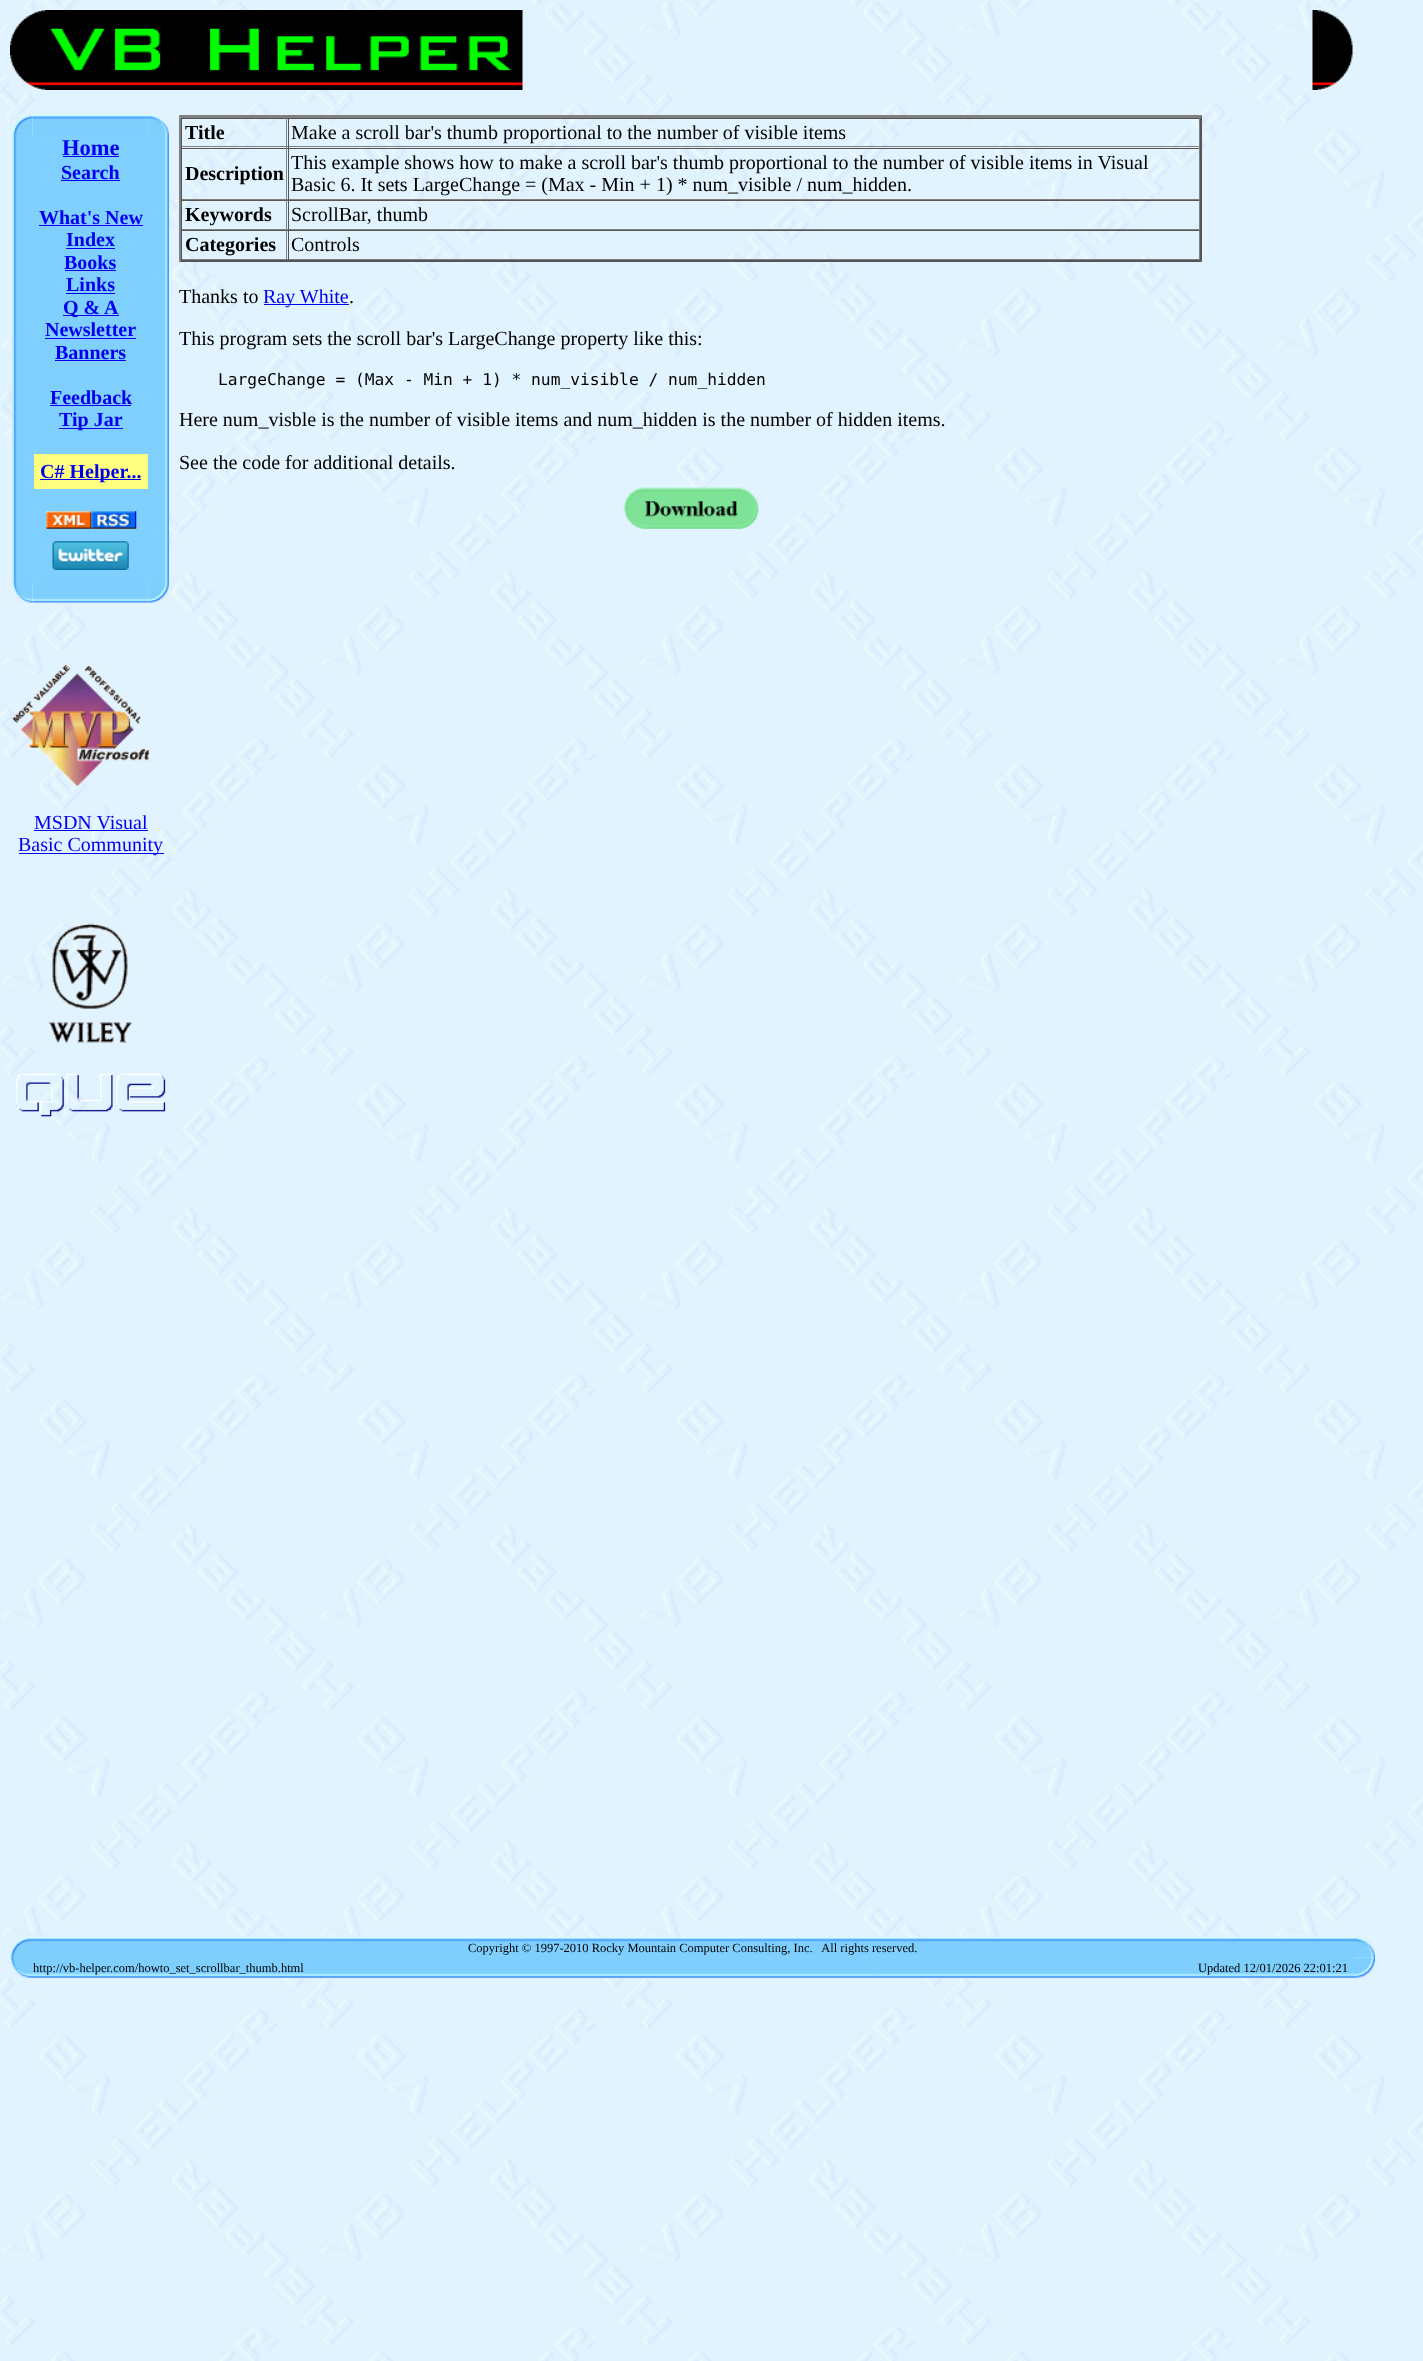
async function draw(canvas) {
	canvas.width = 1423;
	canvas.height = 2361;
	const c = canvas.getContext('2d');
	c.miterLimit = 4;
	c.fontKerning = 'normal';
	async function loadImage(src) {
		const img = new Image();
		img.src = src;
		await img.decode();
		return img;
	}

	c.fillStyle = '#fff';
	c.fillRect(0, 0, 1423, 2361);
	c.drawImage(await loadImage('img1.png'), 0, 0, 1423, 2361);
	c.drawImage(await loadImage('img2.png'), 10, 10, 513, 80);
	c.drawImage(await loadImage('img3.png'), 1312, 10, 41, 80);
	c.drawImage(await loadImage('img4.png'), 12, 115, 21, 20);
	c.drawImage(await loadImage('img5.png'), 32, 115, 117, 20);
	c.drawImage(await loadImage('img6.png'), 148, 115, 21, 20);
	c.fillStyle = '#7fcfff';
	c.fillRect(13, 135, 156, 448);
	c.drawImage(await loadImage('img7.png'), 12, 135, 5, 448);
	c.font = 'bold 22.5px Liberation Serif';
	c.fillStyle = '#00e';
	c.fillText('Home', 62, 155);
	c.fillRect(63, 156, 56, 1);
	c.font = 'bold 20px Liberation Serif';
	c.fillText('Search', 61, 179);
	c.fillRect(61, 180, 59, 1);
	c.fillText('What\'s New', 39, 224);
	c.fillRect(39, 225, 104, 1);
	c.fillText('Index', 66, 246);
	c.fillRect(66, 248, 49, 1);
	c.fillText('Books', 64, 269);
	c.fillRect(65, 270, 51, 1);
	c.fillText('Links', 66, 291);
	c.fillRect(66, 293, 49, 1);
	c.fillRect(63, 315, 56, 1);
	c.fillText('Q & A', 63, 314);
	c.fillText('Newsletter', 45, 336);
	c.fillRect(45, 338, 91, 1);
	c.fillText('Banners', 55, 359);
	c.fillRect(55, 360, 71, 1);
	c.fillText('Feedback', 50, 404);
	c.fillRect(50, 405, 81, 1);
	c.fillRect(59, 428, 64, 1);
	c.fillText('Tip Jar', 59, 426);
	c.fillStyle = '#ffff80';
	c.fillRect(34, 454, 114, 35);
	c.fillStyle = '#00e';
	c.fillRect(40, 479, 101, 1);
	c.fillText('C# Helper...', 40, 478);
	c.drawImage(await loadImage('img8.png'), 46, 511, 91, 18);
	c.drawImage(await loadImage('img9.png'), 52, 541, 77, 29);
	c.drawImage(await loadImage('img10.png'), 164, 135, 5, 448);
	c.drawImage(await loadImage('img11.png'), 12, 582, 21, 21);
	c.drawImage(await loadImage('img12.png'), 32, 583, 117, 20);
	c.drawImage(await loadImage('img13.png'), 148, 582, 21, 21);
	c.drawImage(await loadImage('img14.png'), 12, 665, 137, 122);
	c.font = '20px Liberation Serif';
	c.fillText('MSDN Visual', 34, 829);
	c.fillRect(34, 830, 114, 1);
	c.fillRect(19, 853, 145, 1);
	c.fillText('Basic Community', 18, 851);
	c.drawImage(await loadImage('img15.png'), 48, 923, 85, 120);
	c.drawImage(await loadImage('img16.png'), 16, 1073, 150, 44);
	c.fillStyle = '#808080';
	c.beginPath();
	c.moveTo(179, 115);
	c.lineTo(1202, 115);
	c.lineTo(1200, 118);
	c.lineTo(181, 118);
	c.closePath();
	c.fill();
	c.fillStyle = '#555';
	c.beginPath();
	c.moveTo(1202, 115);
	c.lineTo(1202, 262);
	c.lineTo(1200, 260);
	c.lineTo(1200, 118);
	c.closePath();
	c.fill();
	c.beginPath();
	c.moveTo(1202, 262);
	c.lineTo(179, 262);
	c.lineTo(181, 260);
	c.lineTo(1200, 260);
	c.closePath();
	c.fill();
	c.fillStyle = '#808080';
	c.beginPath();
	c.moveTo(179, 262);
	c.lineTo(179, 115);
	c.lineTo(181, 118);
	c.lineTo(181, 260);
	c.closePath();
	c.fill();
	for (const [x, y, w, h, color] of [
		[181, 118, 1019, 1, '#555'],
		[286, 118, 1, 30, '#808080'],
		[181, 146, 107, 1, '#808080'],
		[181, 118, 1, 30, '#555'],
	]) {
		c.fillStyle = color;
		c.fillRect(x, y, w, h);
	}
	c.font = 'bold 20px Liberation Serif';
	c.fillStyle = '#000';
	c.fillText('Title', 185, 139);
	for (const [x, y, w, h, color] of [
		[1199, 118, 1, 30, '#808080'],
		[288, 146, 912, 1, '#808080'],
		[288, 118, 1, 30, '#555'],
	]) {
		c.fillStyle = color;
		c.fillRect(x, y, w, h);
	}
	c.font = '20px Liberation Serif';
	c.fillStyle = '#000';
	c.fillText('Make a scroll bar\'s thumb proportional to the number of visible items', 291, 139);
	for (const [x, y, w, h, color] of [
		[181, 148, 1019, 1, '#555'],
		[286, 148, 1, 52, '#808080'],
		[181, 199, 107, 1, '#808080'],
		[181, 148, 1, 52, '#555'],
	]) {
		c.fillStyle = color;
		c.fillRect(x, y, w, h);
	}
	c.font = 'bold 20px Liberation Serif';
	c.fillStyle = '#000';
	c.fillText('Description', 185, 180);
	for (const [x, y, w, h, color] of [
		[1199, 148, 1, 52, '#808080'],
		[288, 199, 912, 1, '#808080'],
		[288, 148, 1, 52, '#555'],
	]) {
		c.fillStyle = color;
		c.fillRect(x, y, w, h);
	}
	c.font = '20px Liberation Serif';
	c.fillStyle = '#000';
	c.fillText('This example shows how to make a scroll bar\'s thumb proportional to the number of visible items in Visual', 291, 169);
	c.fillText('Basic 6. It sets LargeChange = (Max - Min + 1) * num_visible / num_hidden.', 291, 191);
	for (const [x, y, w, h, color] of [
		[181, 200, 1019, 1, '#555'],
		[286, 200, 1, 30, '#808080'],
		[181, 229, 107, 1, '#808080'],
		[181, 200, 1, 30, '#555'],
	]) {
		c.fillStyle = color;
		c.fillRect(x, y, w, h);
	}
	c.font = 'bold 20px Liberation Serif';
	c.fillStyle = '#000';
	c.fillText('Keywords', 185, 221);
	for (const [x, y, w, h, color] of [
		[1199, 200, 1, 30, '#808080'],
		[288, 229, 912, 1, '#808080'],
		[288, 200, 1, 30, '#555'],
	]) {
		c.fillStyle = color;
		c.fillRect(x, y, w, h);
	}
	c.font = '20px Liberation Serif';
	c.fillStyle = '#000';
	c.fillText('ScrollBar, thumb', 291, 221);
	for (const [x, y, w, h, color] of [
		[181, 230, 1019, 1, '#555'],
		[286, 230, 1, 30, '#808080'],
		[181, 259, 107, 1, '#808080'],
		[181, 230, 1, 30, '#555'],
	]) {
		c.fillStyle = color;
		c.fillRect(x, y, w, h);
	}
	c.font = 'bold 20px Liberation Serif';
	c.fillStyle = '#000';
	c.fillText('Categories', 185, 251);
	for (const [x, y, w, h, color] of [
		[1199, 230, 1, 30, '#808080'],
		[288, 259, 912, 1, '#808080'],
		[288, 230, 1, 30, '#555'],
	]) {
		c.fillStyle = color;
		c.fillRect(x, y, w, h);
	}
	c.font = '20px Liberation Serif';
	c.fillStyle = '#000';
	c.fillText('Controls', 291, 251);
	c.fillText('Thanks to', 179, 303);
	c.fillStyle = '#00e';
	c.fillRect(264, 304, 85, 1);
	c.fillText('Ray White', 263, 303);
	c.fillStyle = '#000';
	c.fillText('.', 349, 303);
	c.fillText('This program sets the scroll bar\'s LargeChange property like this:', 179, 345);
	c.font = '16.25px DejaVu Sans Mono';
	c.fillText('LargeChange = (Max - Min + 1) * num_visible / num_hidden', 218, 385);
	c.font = '20px Liberation Serif';
	c.fillText('Here num_visble is the number of visible items and num_hidden is the number of hidden items.', 179, 426);
	c.fillText('See the code for additional details.', 179, 469);
	c.drawImage(await loadImage('img17.png'), 623, 487, 136, 42);
	c.fillStyle = '#87cefa';
	c.fillRect(10, 1957, 1345, 21);
	c.drawImage(await loadImage('img18.png'), 10, 1937, 20, 21);
	c.drawImage(await loadImage('img19.png'), 30, 1937, 1325, 21);
	c.font = '12.5px Liberation Serif';
	c.fillStyle = '#000';
	c.fillText('Copyright © 1997-2010 Rocky Mountain Computer Consulting, Inc.   All rights reserved.', 468, 1952);
	c.drawImage(await loadImage('img20.png'), 1355, 1937, 20, 21);
	c.fillStyle = '#e1f3ff';
	c.fillRect(10, 1977, 20, 1);
	c.drawImage(await loadImage('img21.png'), 10, 1957, 20, 21);
	c.drawImage(await loadImage('img22.png'), 30, 1958, 844, 20);
	c.fillStyle = '#000';
	c.fillText('http://vb-helper.com/howto_set_scrollbar_thumb.html', 33, 1972);
	c.drawImage(await loadImage('img23.png'), 873, 1958, 482, 20);
	c.fillText('Updated 12/01/2026 22:01:21', 1198, 1972);
	c.drawImage(await loadImage('img24.png'), 1355, 1957, 20, 21);
}

draw(document.querySelector('canvas'));
